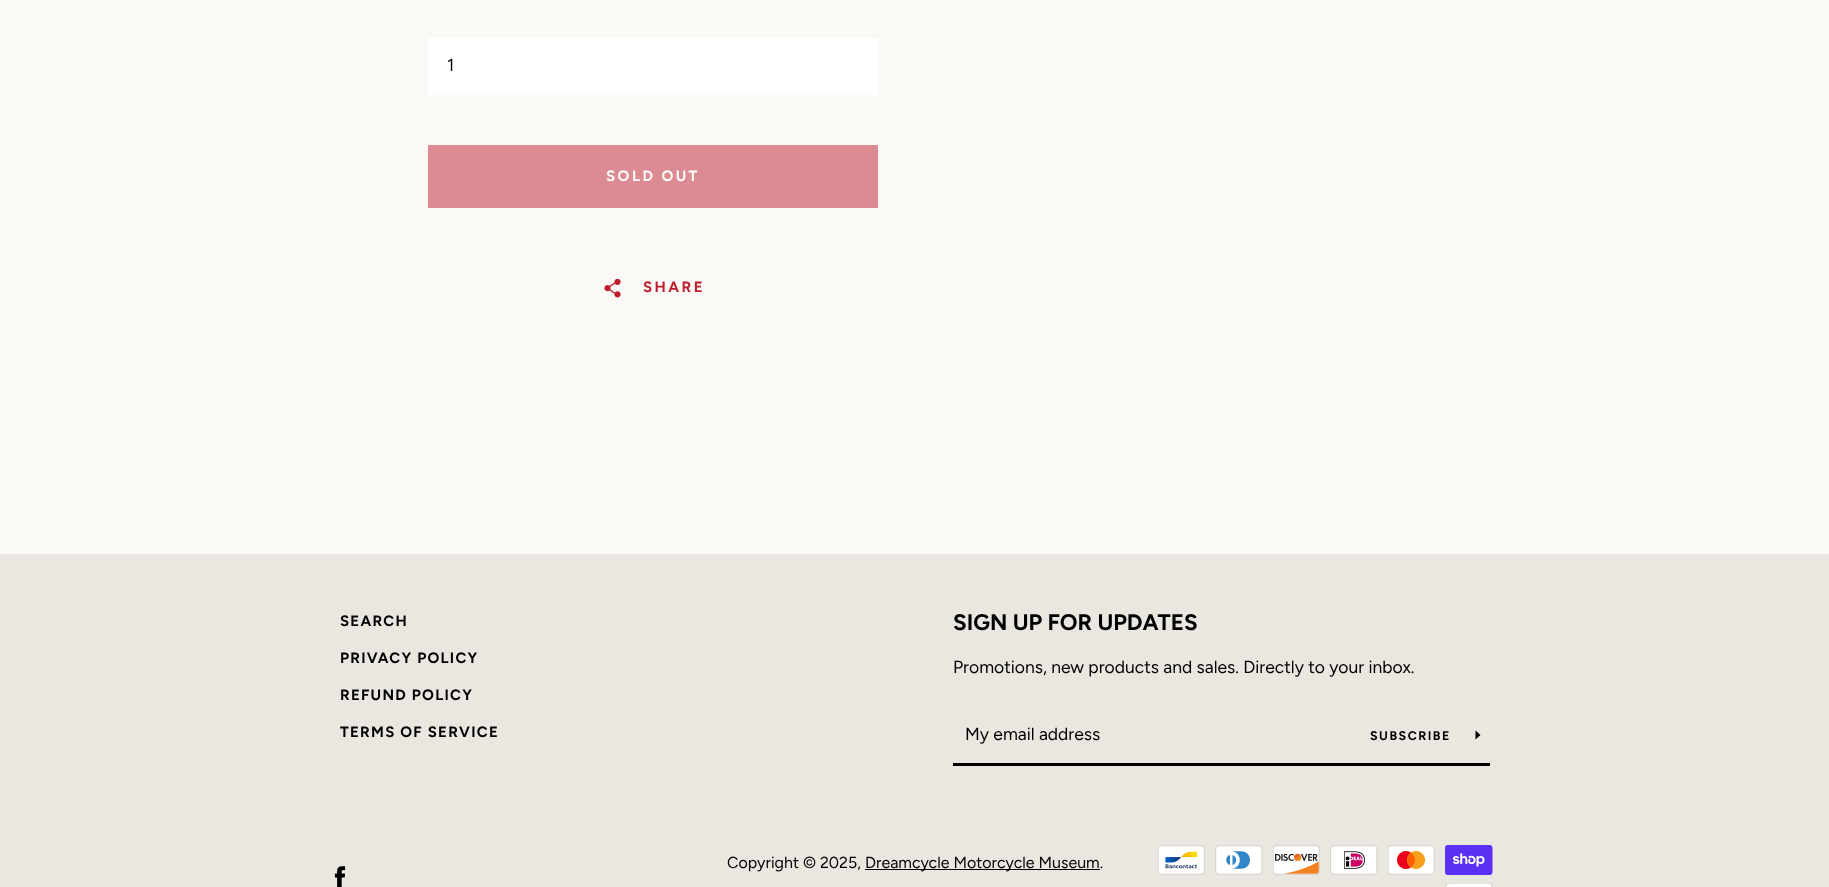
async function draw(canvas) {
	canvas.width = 1829;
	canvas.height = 887;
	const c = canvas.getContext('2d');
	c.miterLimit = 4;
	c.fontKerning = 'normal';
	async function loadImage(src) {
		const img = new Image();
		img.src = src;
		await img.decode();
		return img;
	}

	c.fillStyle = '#faf9f6';
	c.fillRect(0, 0, 1829, 887);
	c.fillStyle = '#fff';
	c.fillRect(428, 38, 450, 57);
	c.font = '17.5px Figtree';
	c.fillStyle = '#000';
	c.fillText('1', 447, 71);
	c.fillStyle = '#dd8b92';
	c.fillRect(428, 145, 450, 63);
	c.letterSpacing = '2.5px';
	c.font = 'bold 15px Figtree';
	c.fillStyle = '#fdfcfb';
	c.fillText('SOLD OUT', 606, 181);
	c.drawImage(await loadImage('img1.png'), 604, 279, 17, 19);
	c.fillStyle = '#bf1d2e';
	c.fillText('SHARE', 643, 292);
	c.fillStyle = '#eae7e0';
	c.fillRect(0, 554, 1829, 333);
	c.letterSpacing = '1.25px';
	c.fillStyle = '#000';
	for (const [text, x, y] of [
		['SEARCH', 340, 626],
		['PRIVACY POLICY', 340, 663],
		['REFUND POLICY', 340, 700],
		['TERMS OF SERVICE', 340, 737],
	]) {
		c.fillText(text, x, y);
	}
	c.letterSpacing = '0px';
	c.font = 'bold 22.5px Figtree';
	c.fillText('SIGN UP FOR UPDATES', 953, 630);
	c.font = '17.5px Figtree';
	c.fillText('Promotions, new products and sales. Directly to your inbox.', 953, 673);
	c.fillRect(953, 763, 537, 3);
	c.fillText('My email address', 965, 740);
	c.letterSpacing = '1.5px';
	c.font = 'bold 12.5px Figtree';
	c.fillText('SUBSCRIBE', 1370, 740);
	c.beginPath();
	c.moveTo(1480.5, 735);
	c.lineTo(1475.5, 739.5);
	c.lineTo(1475.5, 730.5);
	c.closePath();
	c.fill();
	c.letterSpacing = '0px';
	c.font = '16px Figtree';
	c.fillText('Copyright © 2025,', 727, 868);
	c.fillRect(865, 869, 235, 1);
	c.fillText('Dreamcycle Motorcycle Museum.', 865, 868);
	c.drawImage(await loadImage('img2.png'), 1158, 845, 47, 30);
	c.drawImage(await loadImage('img3.png'), 1215, 845, 48, 30);
	c.drawImage(await loadImage('img4.png'), 1273, 845, 47, 30);
	c.drawImage(await loadImage('img5.png'), 1330, 845, 48, 30);
	c.drawImage(await loadImage('img6.png'), 1388, 845, 47, 30);
	c.drawImage(await loadImage('img7.png'), 1445, 845, 48, 30);
	c.drawImage(await loadImage('img8.png'), 1445, 883, 48, 4);
	c.drawImage(await loadImage('img9.png'), 334, 866, 12, 21);
}

draw(document.querySelector('canvas'));
